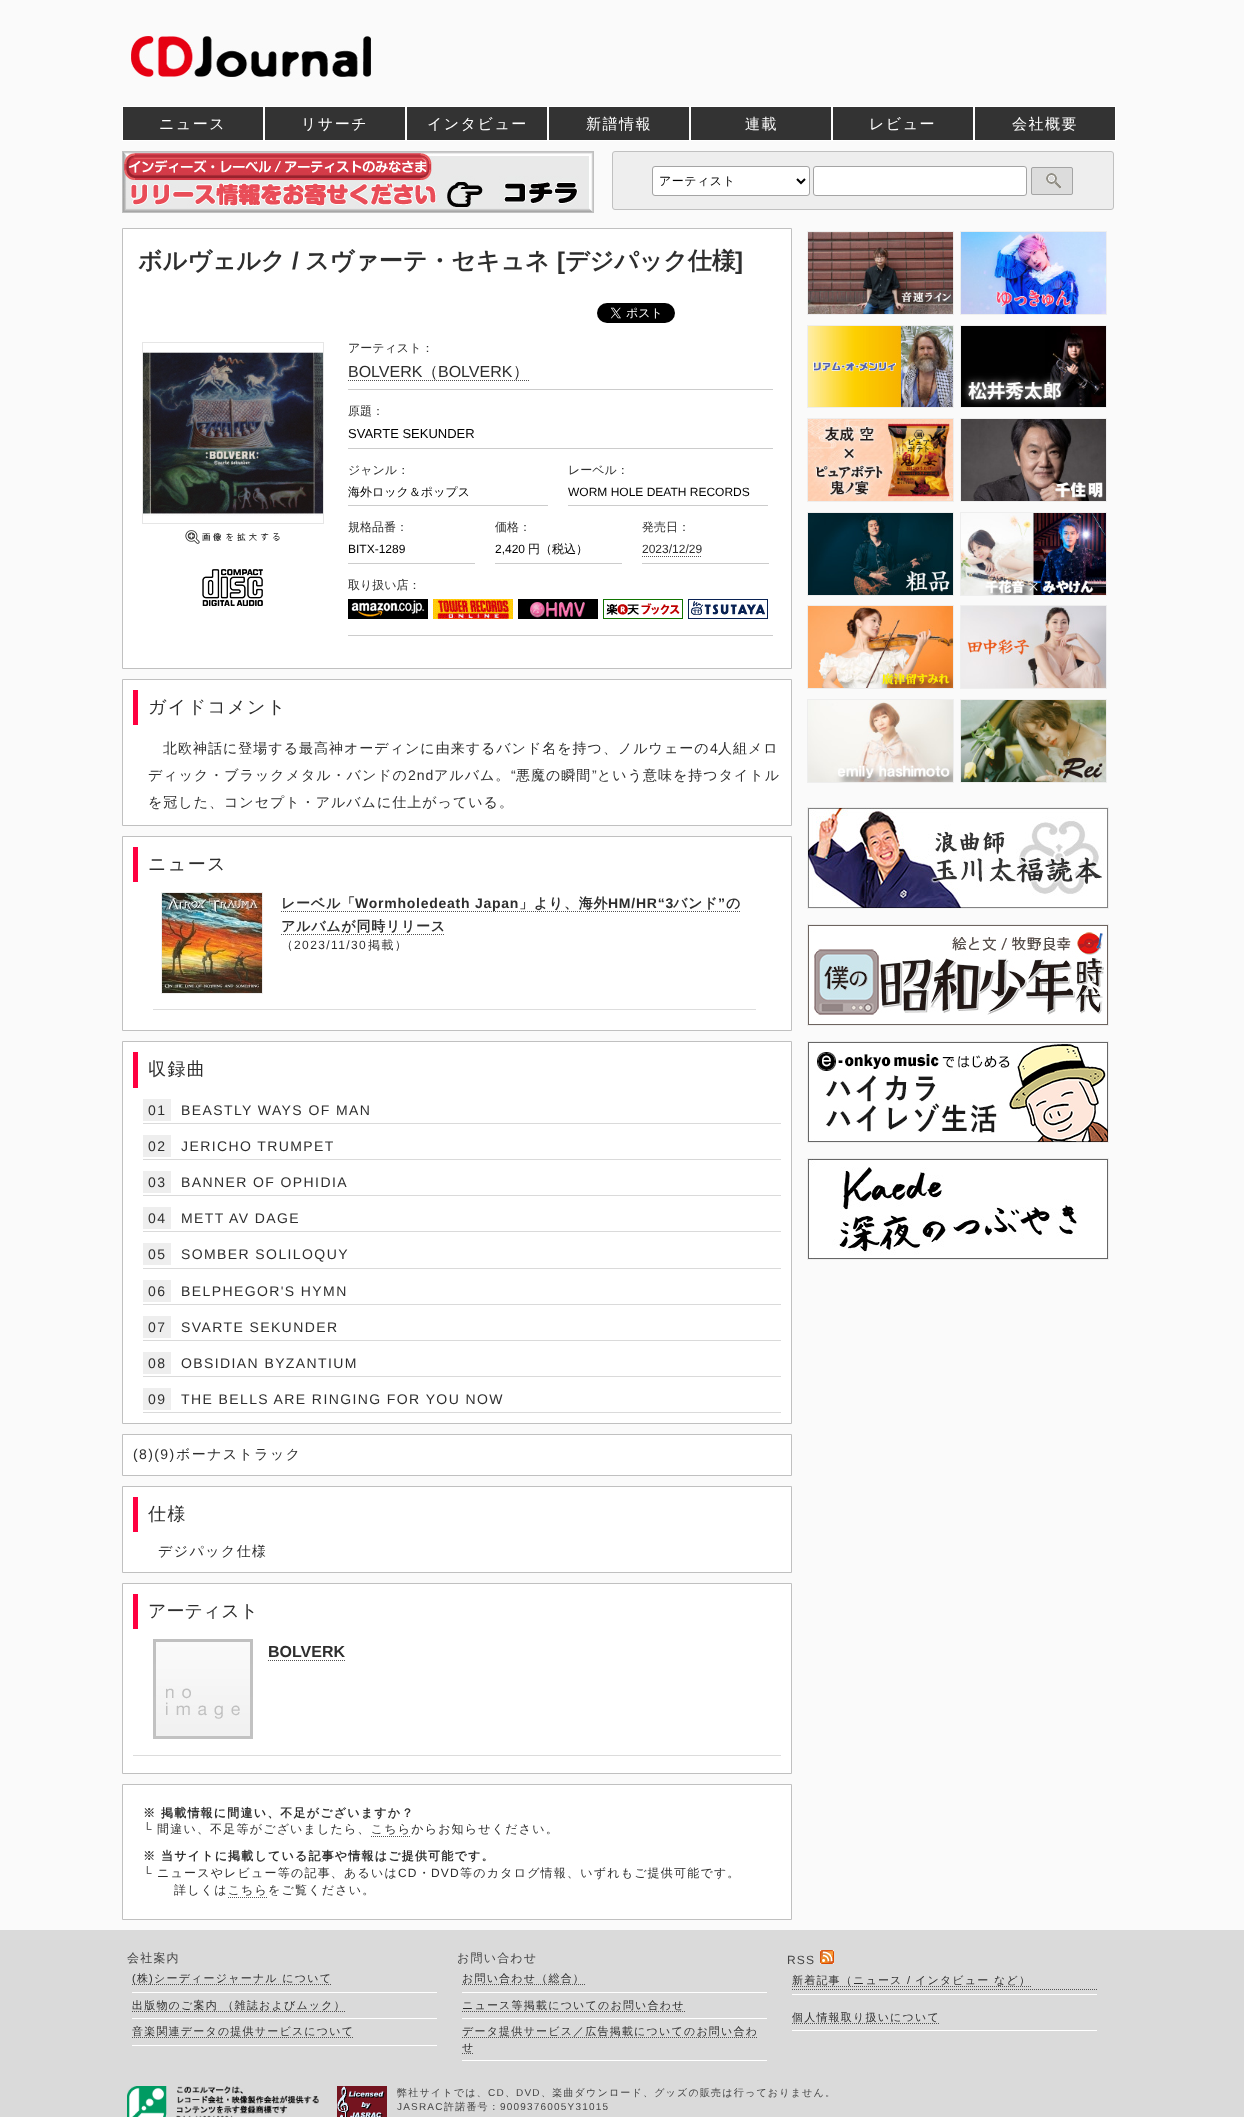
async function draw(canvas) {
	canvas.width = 1244;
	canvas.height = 2117;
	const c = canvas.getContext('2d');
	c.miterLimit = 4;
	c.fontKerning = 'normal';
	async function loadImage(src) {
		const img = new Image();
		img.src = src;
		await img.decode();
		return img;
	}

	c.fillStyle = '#fafafa';
	c.fillRect(0, 0, 1244, 2117);
	c.drawImage(await loadImage('img1.png'), 131, 36, 240, 43);
	c.strokeStyle = '#fff';
	c.strokeRect(122.5, 106.5, 141, 34);
	c.fillStyle = '#333';
	c.fillRect(123, 107, 140, 33);
	c.letterSpacing = '1.5px';
	c.font = '500 15px WenQuanYi Zen Hei';
	c.fillStyle = '#fff';
	c.fillText('ニュース', 159, 129);
	c.strokeRect(264.5, 106.5, 141, 34);
	c.fillStyle = '#333';
	c.fillRect(265, 107, 140, 33);
	c.fillStyle = '#fff';
	c.fillText('リサーチ', 301, 129);
	c.strokeRect(406.5, 106.5, 141, 34);
	c.fillStyle = '#333';
	c.fillRect(407, 107, 140, 33);
	c.fillStyle = '#fff';
	c.fillText('インタビュー', 427, 129);
	c.strokeRect(548.5, 106.5, 141, 34);
	c.fillStyle = '#333';
	c.fillRect(549, 107, 140, 33);
	c.fillStyle = '#fff';
	c.fillText('新譜情報', 586, 129);
	c.strokeRect(690.5, 106.5, 141, 34);
	c.fillStyle = '#333';
	c.fillRect(691, 107, 140, 33);
	c.fillStyle = '#fff';
	c.fillText('連載', 745, 129);
	c.strokeRect(832.5, 106.5, 141, 34);
	c.fillStyle = '#333';
	c.fillRect(833, 107, 140, 33);
	c.fillStyle = '#fff';
	c.fillText('レビュー', 869, 129);
	c.strokeRect(974.5, 106.5, 141, 34);
	c.fillStyle = '#333';
	c.fillRect(975, 107, 140, 33);
	c.fillStyle = '#fff';
	c.fillText('会社概要', 1012, 129);
	c.strokeStyle = '#c0c0c0';
	c.strokeRect(122.5, 151.5, 471, 61);
	c.drawImage(await loadImage('img2.png'), 123, 152, 470, 60);
	c.fillStyle = '#eee';
	c.beginPath();
	c.roundRect(612.5, 151.5, 501, 58, 2.5);
	c.fill();
	c.stroke();
	c.fillStyle = '#fff';
	c.beginPath();
	c.roundRect(653, 167, 156, 28, 2);
	c.fill();
	c.beginPath();
	c.moveTo(797, 179);
	c.lineTo(801, 183);
	c.lineTo(805, 179);
	c.strokeStyle = '#000';
	c.lineWidth = 2;
	c.stroke();
	c.beginPath();
	c.roundRect(652.5, 166.5, 157, 29, 2.5);
	c.strokeStyle = '#a4a4a4';
	c.lineWidth = 1;
	c.stroke();
	c.letterSpacing = '0.5px';
	c.font = '500 12px WenQuanYi Zen Hei';
	c.fillStyle = '#000';
	c.fillText('アーティスト', 659, 185);
	c.fillStyle = '#fff';
	c.beginPath();
	c.roundRect(813.5, 166.5, 213, 29, 2.5);
	c.fill();
	c.stroke();
	c.fillStyle = '#dcdcdc';
	c.beginPath();
	c.roundRect(1031, 167, 42, 28, 2);
	c.fill();
	c.drawImage(await loadImage('img3.png'), 1046, 173, 15, 16);
	c.beginPath();
	c.roundRect(1031.5, 167.5, 41, 27, 1.5);
	c.stroke();
	c.fillStyle = '#fff';
	c.beginPath();
	c.rect(122.5, 228.5, 669, 440);
	c.fill();
	c.strokeStyle = '#c0c0c0';
	c.stroke();
	c.letterSpacing = '0px';
	c.font = 'bold 24px WenQuanYi Zen Hei';
	c.fillStyle = '#2e2e2e';
	c.fillText('ボルヴェルク', 138, 269);
	c.font = 'bold 24px Liberation Sans';
	c.fillText('/', 292, 269);
	c.font = 'bold 24px WenQuanYi Zen Hei';
	c.fillText('スヴァーテ・セキュネ', 305, 269);
	c.font = 'bold 24px Liberation Sans';
	c.fillText('[', 557, 269);
	c.font = 'bold 24px WenQuanYi Zen Hei';
	c.fillText('デジパック仕様', 565, 269);
	c.font = 'bold 24px Liberation Sans';
	c.fillText(']', 735, 269);
	c.drawImage(await loadImage('img4.png'), 597, 303, 78, 20);
	c.strokeStyle = '#e6e6e6';
	c.strokeRect(142.5, 342.5, 181, 181);
	c.drawImage(await loadImage('img5.png'), 143, 352, 180, 164);
	c.drawImage(await loadImage('img6.png'), 185, 530, 95, 14);
	c.drawImage(await loadImage('img7.png'), 202, 569, 61, 37);
	c.fillStyle = '#ccc';
	c.fillRect(348, 389, 425, 1);
	c.font = '500 12px WenQuanYi Zen Hei';
	c.fillStyle = '#2e2e2e';
	c.fillText('アーティスト：', 348, 352);
	c.font = '16px Liberation Sans';
	c.fillText('BOLVERK', 348, 377);
	c.font = '500 16px WenQuanYi Zen Hei';
	c.fillText('（', 422, 377);
	c.beginPath();
	c.moveTo(348, 380.5);
	c.lineTo(529, 380.5);
	c.strokeStyle = '#515151';
	c.setLineDash([1, 1]);
	c.stroke();
	c.font = '16px Liberation Sans';
	c.fillText('BOLVERK', 438, 377);
	c.font = '500 16px WenQuanYi Zen Hei';
	c.fillText('）', 513, 377);
	c.fillStyle = '#ccc';
	c.fillRect(348, 448, 425, 1);
	c.font = '500 12px WenQuanYi Zen Hei';
	c.fillStyle = '#2e2e2e';
	c.fillText('原題：', 348, 415);
	c.font = '13px Liberation Sans';
	c.fillStyle = '#000';
	c.fillText('SVARTE SEKUNDER', 348, 438);
	c.fillStyle = '#ccc';
	c.fillRect(348, 505, 200, 1);
	c.font = '500 12px WenQuanYi Zen Hei';
	c.fillStyle = '#2e2e2e';
	c.fillText('ジャンル：', 348, 474);
	c.fillStyle = '#000';
	c.fillText('海外ロック＆ポップス', 348, 496);
	c.fillStyle = '#ccc';
	c.fillRect(568, 505, 200, 1);
	c.fillStyle = '#2e2e2e';
	c.fillText('レーベル：', 568, 474);
	c.font = '12px Liberation Sans';
	c.fillStyle = '#000';
	c.fillText('WORM HOLE DEATH RECORDS', 568, 496);
	c.fillStyle = '#ccc';
	c.fillRect(348, 563, 127, 1);
	c.font = '500 12px WenQuanYi Zen Hei';
	c.fillStyle = '#2e2e2e';
	c.fillText('規格品番：', 348, 531);
	c.font = '12px Liberation Sans';
	c.fillStyle = '#000';
	c.fillText('BITX-1289', 348, 553);
	c.fillStyle = '#ccc';
	c.fillRect(495, 563, 127, 1);
	c.font = '500 12px WenQuanYi Zen Hei';
	c.fillStyle = '#2e2e2e';
	c.fillText('価格：', 495, 531);
	c.font = '12px Liberation Sans';
	c.fillStyle = '#000';
	c.fillText('2,420', 495, 553);
	c.font = '500 12px WenQuanYi Zen Hei';
	c.fillText('円（税込）', 528, 553);
	c.fillStyle = '#ccc';
	c.fillRect(642, 563, 127, 1);
	c.fillStyle = '#2e2e2e';
	c.fillText('発売日：', 642, 531);
	c.font = '12px Liberation Sans';
	c.fillText('2023/12/29', 642, 553);
	c.beginPath();
	c.moveTo(642, 556.5);
	c.lineTo(702, 556.5);
	c.stroke();
	c.fillStyle = '#ccc';
	c.fillRect(348, 635, 425, 1);
	c.font = '500 12px WenQuanYi Zen Hei';
	c.fillStyle = '#2e2e2e';
	c.fillText('取り扱い店：', 348, 589);
	c.drawImage(await loadImage('img8.png'), 348, 599, 80, 20);
	c.drawImage(await loadImage('img9.png'), 433, 599, 80, 20);
	c.drawImage(await loadImage('img10.png'), 518, 599, 80, 20);
	c.drawImage(await loadImage('img11.png'), 603, 599, 80, 20);
	c.drawImage(await loadImage('img12.png'), 688, 599, 80, 20);
	c.fillStyle = '#fff';
	c.beginPath();
	c.rect(122.5, 679.5, 669, 146);
	c.fill();
	c.strokeStyle = '#c0c0c0';
	c.setLineDash([]);
	c.stroke();
	c.fillStyle = '#ff0040';
	c.fillRect(133, 690, 5, 35);
	c.letterSpacing = '1.4px';
	c.font = '500 18px WenQuanYi Zen Hei';
	c.fillStyle = '#2e2e2e';
	c.fillText('ガイドコメント', 148, 713);
	c.letterSpacing = '1px';
	c.font = '500 14px WenQuanYi Zen Hei';
	c.fillText('北欧神話に登場する最高神オーディンに由来するバンド名を持つ、ノルウェーの', 163, 753);
	c.font = '14px Liberation Sans';
	c.fillText('4', 710, 753);
	c.font = '500 14px WenQuanYi Zen Hei';
	c.fillText('人組メロ', 718, 753);
	c.fillText('ディック・ブラックメタル・バンドの', 148, 780);
	c.font = '14px Liberation Sans';
	c.fillText('2nd', 408, 780);
	c.font = '500 14px WenQuanYi Zen Hei';
	c.fillText('アルバム。', 434, 780);
	c.font = '14px Liberation Sans';
	c.fillText('“', 511, 780);
	c.font = '500 14px WenQuanYi Zen Hei';
	c.fillText('悪魔の瞬間', 516, 780);
	c.font = '14px Liberation Sans';
	c.fillText('”', 592, 780);
	c.font = '500 14px WenQuanYi Zen Hei';
	c.fillText('という意味を持つタイトル', 597, 780);
	c.fillText('を冠した、コンセプト・アルバムに仕上がっている。', 148, 807);
	c.fillStyle = '#fff';
	c.beginPath();
	c.rect(122.5, 836.5, 669, 194);
	c.fill();
	c.stroke();
	c.fillStyle = '#ff0040';
	c.fillRect(133, 847, 5, 35);
	c.letterSpacing = '1.4px';
	c.font = '500 18px WenQuanYi Zen Hei';
	c.fillStyle = '#2e2e2e';
	c.fillText('ニュース', 148, 870);
	c.fillStyle = '#ddd';
	c.fillRect(153, 1009, 603, 1);
	c.strokeStyle = '#eee';
	c.strokeRect(161.5, 892.5, 101, 101);
	c.drawImage(await loadImage('img13.png'), 162, 893, 100, 100);
	c.letterSpacing = '0.75px';
	c.font = 'bold 14px WenQuanYi Zen Hei';
	c.fillStyle = '#2e2e2e';
	c.fillText('レーベル「', 281, 908);
	c.font = 'bold 14px Liberation Sans';
	c.fillText('Wormholedeath Japan', 355, 908);
	c.beginPath();
	c.moveTo(281, 911.5);
	c.lineTo(741, 911.5);
	c.strokeStyle = '#515151';
	c.setLineDash([1, 1]);
	c.stroke();
	c.font = 'bold 14px WenQuanYi Zen Hei';
	c.fillText('」より、海外', 519, 908);
	c.font = 'bold 14px Liberation Sans';
	c.fillText('HM/HR“3', 608, 908);
	c.font = 'bold 14px WenQuanYi Zen Hei';
	c.fillText('バンド', 673, 908);
	c.font = 'bold 14px Liberation Sans';
	c.fillText('”', 718, 908);
	c.font = 'bold 14px WenQuanYi Zen Hei';
	c.fillText('の', 726, 908);
	c.fillText('アルバムが同時リリース', 281, 931);
	c.beginPath();
	c.moveTo(281, 934.5);
	c.lineTo(445, 934.5);
	c.stroke();
	c.letterSpacing = '1.4px';
	c.font = '500 12px WenQuanYi Zen Hei';
	c.fillText('（', 281, 949);
	c.font = '12px Liberation Sans';
	c.fillText('2023/11/30', 294, 949);
	c.font = '500 12px WenQuanYi Zen Hei';
	c.fillText('掲載）', 368, 949);
	c.fillStyle = '#fff';
	c.beginPath();
	c.rect(122.5, 1041.5, 669, 382);
	c.fill();
	c.strokeStyle = '#c0c0c0';
	c.setLineDash([]);
	c.stroke();
	c.fillStyle = '#ff0040';
	c.fillRect(133, 1052, 5, 36);
	c.font = '500 18px WenQuanYi Zen Hei';
	c.fillStyle = '#2e2e2e';
	c.fillText('収録曲', 148, 1075);
	c.fillStyle = '#dadada';
	c.fillRect(143, 1123, 638, 1);
	c.fillStyle = '#eee';
	c.fillRect(143, 1099, 28, 22);
	c.font = '14px Liberation Sans';
	c.fillStyle = '#2e2e2e';
	c.fillText('01', 148, 1115);
	c.fillText('BEASTLY WAYS OF MAN', 181, 1115);
	c.fillStyle = '#dadada';
	c.fillRect(143, 1159, 638, 1);
	c.fillStyle = '#eee';
	c.fillRect(143, 1135, 28, 22);
	c.fillStyle = '#2e2e2e';
	c.fillText('02', 148, 1151);
	c.fillText('JERICHO TRUMPET', 181, 1151);
	c.fillStyle = '#dadada';
	c.fillRect(143, 1195, 638, 1);
	c.fillStyle = '#eee';
	c.fillRect(143, 1171, 28, 22);
	c.fillStyle = '#2e2e2e';
	c.fillText('03', 148, 1187);
	c.fillText('BANNER OF OPHIDIA', 181, 1187);
	c.fillStyle = '#dadada';
	c.fillRect(143, 1231, 638, 1);
	c.fillStyle = '#eee';
	c.fillRect(143, 1207, 28, 22);
	c.fillStyle = '#2e2e2e';
	c.fillText('04', 148, 1223);
	c.fillText('METT AV DAGE', 181, 1223);
	c.fillStyle = '#dadada';
	c.fillRect(143, 1268, 638, 1);
	c.fillStyle = '#eee';
	c.fillRect(143, 1243, 28, 22);
	c.fillStyle = '#2e2e2e';
	c.fillText('05', 148, 1259);
	c.fillText('SOMBER SOLILOQUY', 181, 1259);
	c.fillStyle = '#dadada';
	c.fillRect(143, 1304, 638, 1);
	c.fillStyle = '#eee';
	c.fillRect(143, 1280, 28, 22);
	c.fillStyle = '#2e2e2e';
	c.fillText('06', 148, 1296);
	c.fillText('BELPHEGOR\'S HYMN', 181, 1296);
	c.fillStyle = '#dadada';
	c.fillRect(143, 1340, 638, 1);
	c.fillStyle = '#eee';
	c.fillRect(143, 1316, 28, 22);
	c.fillStyle = '#2e2e2e';
	c.fillText('07', 148, 1332);
	c.fillText('SVARTE SEKUNDER', 181, 1332);
	c.fillStyle = '#dadada';
	c.fillRect(143, 1376, 638, 1);
	c.fillStyle = '#eee';
	c.fillRect(143, 1352, 28, 22);
	c.fillStyle = '#2e2e2e';
	c.fillText('08', 148, 1368);
	c.fillText('OBSIDIAN BYZANTIUM', 181, 1368);
	c.fillStyle = '#dadada';
	c.fillRect(143, 1412, 638, 1);
	c.fillStyle = '#eee';
	c.fillRect(143, 1388, 28, 22);
	c.fillStyle = '#2e2e2e';
	c.fillText('09', 148, 1404);
	c.fillText('THE BELLS ARE RINGING FOR YOU NOW', 181, 1404);
	c.fillStyle = '#fff';
	c.beginPath();
	c.rect(122.5, 1434.5, 669, 41);
	c.fill();
	c.stroke();
	c.fillStyle = '#2e2e2e';
	c.fillText('(8)(9)', 133, 1459);
	c.font = '500 14px WenQuanYi Zen Hei';
	c.fillText('ボーナストラック', 176, 1459);
	c.fillStyle = '#fff';
	c.beginPath();
	c.rect(122.5, 1486.5, 669, 86);
	c.fill();
	c.stroke();
	c.fillStyle = '#ff0040';
	c.fillRect(133, 1497, 5, 35);
	c.font = '500 18px WenQuanYi Zen Hei';
	c.fillStyle = '#2e2e2e';
	c.fillText('仕様', 148, 1520);
	c.font = '500 14px WenQuanYi Zen Hei';
	c.fillText('デジパック仕様', 158, 1556);
	c.fillStyle = '#fff';
	c.beginPath();
	c.rect(122.5, 1583.5, 669, 190);
	c.fill();
	c.stroke();
	c.fillStyle = '#ff0040';
	c.fillRect(133, 1594, 5, 35);
	c.letterSpacing = '0px';
	c.font = '500 18px WenQuanYi Zen Hei';
	c.fillStyle = '#2e2e2e';
	c.fillText('アーティスト', 148, 1617);
	c.drawImage(await loadImage('img14.png'), 153, 1639, 100, 100);
	c.font = 'bold 16px Liberation Sans';
	c.fillText('BOLVERK', 268, 1657);
	c.beginPath();
	c.moveTo(268, 1660.5);
	c.lineTo(345, 1660.5);
	c.strokeStyle = '#515151';
	c.setLineDash([1, 1]);
	c.stroke();
	c.fillStyle = '#dcdcdc';
	c.fillRect(133, 1755, 648, 1);
	c.fillStyle = '#fff';
	c.beginPath();
	c.rect(122.5, 1784.5, 669, 135);
	c.fill();
	c.strokeStyle = '#c0c0c0';
	c.setLineDash([]);
	c.stroke();
	c.letterSpacing = '1.2px';
	c.font = 'bold 12px WenQuanYi Zen Hei';
	c.fillStyle = '#2e2e2e';
	c.fillText('※ 掲載情報に間違い、不足がございますか？', 143, 1817);
	c.font = '12px Liberation Sans';
	c.fillText('└', 143, 1833);
	c.font = '500 12px WenQuanYi Zen Hei';
	c.fillText('間違い、不足等がございましたら、こちらからお知らせください。', 157, 1833);
	c.beginPath();
	c.moveTo(371, 1836.5);
	c.lineTo(411, 1836.5);
	c.strokeStyle = '#515151';
	c.setLineDash([1, 1]);
	c.stroke();
	c.font = 'bold 12px WenQuanYi Zen Hei';
	c.fillText('※ 当サイトに掲載している記事や情報はご提供可能です。', 143, 1860);
	c.font = '12px Liberation Sans';
	c.fillText('└', 143, 1877);
	c.font = '500 12px WenQuanYi Zen Hei';
	c.fillText('ニュースやレビュー等の記事、あるいは', 157, 1877);
	c.font = '12px Liberation Sans';
	c.fillText('CD', 398, 1877);
	c.font = '500 12px WenQuanYi Zen Hei';
	c.fillText('・', 418, 1877);
	c.font = '12px Liberation Sans';
	c.fillText('DVD', 431, 1877);
	c.font = '500 12px WenQuanYi Zen Hei';
	c.fillText('等のカタログ情報、いずれもご提供可能です。', 460, 1877);
	c.fillText('詳しくはこちらをご覧ください。', 174, 1894);
	c.beginPath();
	c.moveTo(228, 1897.5);
	c.lineTo(268, 1897.5);
	c.stroke();
	c.strokeStyle = '#eee';
	c.setLineDash([]);
	c.strokeRect(807.5, 231.5, 146, 83);
	c.strokeRect(960.5, 231.5, 146, 83);
	c.drawImage(await loadImage('img15.png'), 808, 232, 145, 82);
	c.drawImage(await loadImage('img16.png'), 961, 232, 145, 82);
	c.strokeRect(807.5, 325.5, 146, 82);
	c.strokeRect(960.5, 325.5, 146, 82);
	c.drawImage(await loadImage('img17.png'), 808, 326, 145, 81);
	c.drawImage(await loadImage('img18.png'), 961, 326, 145, 81);
	c.strokeRect(807.5, 418.5, 146, 83);
	c.strokeRect(960.5, 418.5, 146, 83);
	c.drawImage(await loadImage('img19.png'), 808, 419, 145, 82);
	c.drawImage(await loadImage('img20.png'), 961, 419, 145, 82);
	c.strokeRect(807.5, 512.5, 146, 83);
	c.strokeRect(960.5, 512.5, 146, 83);
	c.drawImage(await loadImage('img21.png'), 808, 513, 145, 82);
	c.drawImage(await loadImage('img22.png'), 961, 513, 145, 82);
	c.strokeRect(807.5, 605.5, 146, 83);
	c.strokeRect(960.5, 605.5, 146, 83);
	c.drawImage(await loadImage('img23.png'), 808, 606, 145, 82);
	c.drawImage(await loadImage('img24.png'), 961, 606, 145, 82);
	c.strokeRect(807.5, 699.5, 146, 83);
	c.strokeRect(960.5, 699.5, 146, 83);
	c.drawImage(await loadImage('img25.png'), 808, 700, 145, 82);
	c.drawImage(await loadImage('img26.png'), 961, 700, 145, 82);
	c.strokeRect(807.5, 807.5, 301, 101);
	c.drawImage(await loadImage('img27.png'), 808, 808, 300, 100);
	c.strokeRect(807.5, 924.5, 301, 101);
	c.drawImage(await loadImage('img28.png'), 808, 925, 300, 100);
	c.strokeRect(807.5, 1041.5, 301, 101);
	c.drawImage(await loadImage('img29.png'), 808, 1042, 300, 100);
	c.strokeRect(807.5, 1158.5, 301, 101);
	c.drawImage(await loadImage('img30.png'), 808, 1159, 300, 100);
	c.fillStyle = '#dadada';
	c.fillRect(0, 1930, 1244, 187);
	c.fillStyle = '#444';
	c.fillText('会社案内', 127, 1962);
	c.fillStyle = '#fff';
	c.fillRect(132, 1992, 305, 1);
	c.beginPath();
	c.moveTo(132, 1984.5);
	c.lineTo(332, 1984.5);
	c.strokeStyle = '#515151';
	c.setLineDash([1, 1]);
	c.stroke();
	c.font = '11px Liberation Sans';
	c.fillStyle = '#2e2e2e';
	c.fillText('(', 132, 1982);
	c.font = '500 11px WenQuanYi Zen Hei';
	c.fillText('株', 137, 1982);
	c.font = '11px Liberation Sans';
	c.fillText(')', 149, 1982);
	c.font = '500 11px WenQuanYi Zen Hei';
	c.fillText('シーディージャーナル について', 154, 1982);
	c.fillStyle = '#fff';
	c.fillRect(132, 2018, 305, 1);
	c.fillStyle = '#2e2e2e';
	c.fillText('出版物のご案内 （雑誌およびムック）', 132, 2009);
	c.beginPath();
	c.moveTo(132, 2011.5);
	c.lineTo(346, 2011.5);
	c.stroke();
	c.fillStyle = '#fff';
	c.fillRect(132, 2045, 305, 1);
	c.fillStyle = '#2e2e2e';
	c.fillText('音楽関連データの提供サービスについて', 132, 2035);
	c.beginPath();
	c.moveTo(132, 2037.5);
	c.lineTo(354, 2037.5);
	c.stroke();
	c.font = '500 12px WenQuanYi Zen Hei';
	c.fillStyle = '#444';
	c.fillText('お問い合わせ', 457, 1962);
	c.fillStyle = '#fff';
	c.fillRect(462, 1992, 305, 1);
	c.font = '500 11px WenQuanYi Zen Hei';
	c.fillStyle = '#2e2e2e';
	c.fillText('お問い合わせ（総合）', 462, 1982);
	c.beginPath();
	c.moveTo(462, 1984.5);
	c.lineTo(585, 1984.5);
	c.stroke();
	c.fillStyle = '#fff';
	c.fillRect(462, 2018, 305, 1);
	c.fillStyle = '#2e2e2e';
	c.fillText('ニュース等掲載についてのお問い合わせ', 462, 2009);
	c.beginPath();
	c.moveTo(462, 2011.5);
	c.lineTo(685, 2011.5);
	c.stroke();
	c.fillStyle = '#fff';
	c.fillRect(462, 2060, 305, 1);
	c.fillStyle = '#2e2e2e';
	c.fillText('データ提供サービス／広告掲載についてのお問い合わ', 462, 2035);
	c.beginPath();
	c.moveTo(462, 2037.5);
	c.lineTo(758, 2037.5);
	c.stroke();
	c.fillText('せ', 462, 2051);
	c.beginPath();
	c.moveTo(462, 2053.5);
	c.lineTo(474, 2053.5);
	c.stroke();
	c.font = '12px Liberation Sans';
	c.fillStyle = '#444';
	c.fillText('RSS', 787, 1964);
	c.drawImage(await loadImage('img31.png'), 820, 1950, 14, 14);
	c.fillStyle = '#fff';
	c.fillRect(792, 1994, 305, 1);
	c.font = '500 11px WenQuanYi Zen Hei';
	c.fillStyle = '#2e2e2e';
	c.fillText('新着記事（ニュース', 792, 1984);
	c.font = '11px Liberation Sans';
	c.fillText('/', 907, 1984);
	c.beginPath();
	c.moveTo(792, 1986.5);
	c.lineTo(1031, 1986.5);
	c.stroke();
	c.beginPath();
	c.moveTo(792, 1989.5);
	c.lineTo(1097, 1989.5);
	c.stroke();
	c.font = '500 11px WenQuanYi Zen Hei';
	c.fillText('インタビュー など）', 915, 1984);
	c.fillStyle = '#fff';
	c.fillRect(792, 2030, 305, 1);
	c.fillStyle = '#2e2e2e';
	c.fillText('個人情報取り扱いについて', 792, 2021);
	c.beginPath();
	c.moveTo(792, 2023.5);
	c.lineTo(940, 2023.5);
	c.stroke();
	c.drawImage(await loadImage('img32.png'), 127, 2086, 192, 31);
	c.drawImage(await loadImage('img33.png'), 337, 2086, 50, 31);
	c.font = '500 10px WenQuanYi Zen Hei';
	c.fillStyle = '#444';
	c.fillText('弊社サイトでは、', 397, 2096);
	c.font = '10px Liberation Sans';
	c.fillText('CD', 488, 2096);
	c.fillText('DVD', 516, 2096);
	c.font = '500 10px WenQuanYi Zen Hei';
	c.fillText('、楽曲ダウンロード、グッズの販売は行っておりません。', 541, 2096);
	c.fillText('、', 505, 2096);
	c.font = '10px Liberation Sans';
	c.fillText('JASRAC', 397, 2110);
	c.font = '500 10px WenQuanYi Zen Hei';
	c.fillText('許諾番号：', 444, 2110);
	c.font = '10px Liberation Sans';
	c.fillText('9009376005Y31015', 500, 2110);
}

draw(document.querySelector('canvas'));
